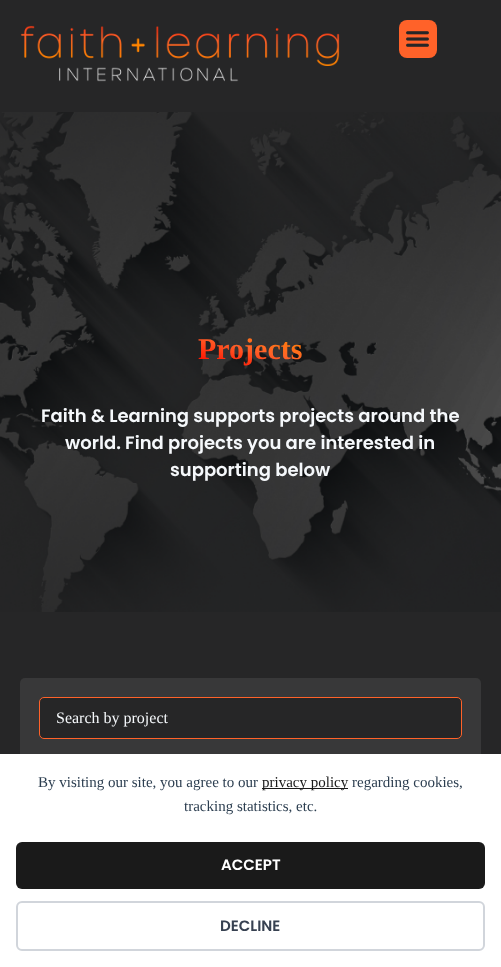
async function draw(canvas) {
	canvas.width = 501;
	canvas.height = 967;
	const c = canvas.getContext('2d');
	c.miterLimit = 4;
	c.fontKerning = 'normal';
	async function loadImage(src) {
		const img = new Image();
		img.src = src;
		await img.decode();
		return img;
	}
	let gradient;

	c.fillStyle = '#262627';
	c.fillRect(0, 0, 501, 967);
	c.drawImage(await loadImage('img1.png'), 20, 25, 320, 57);
	c.fillStyle = '#ff6229';
	c.beginPath();
	c.roundRect(399, 20, 38, 38, 8);
	c.fill();
	c.drawImage(await loadImage('img2.png'), 406, 31, 23, 16);
	c.drawImage(await loadImage('img3.png'), 0, 112, 501, 500);
	c.font = 'bold 30px Liberation Serif';
	gradient = c.createLinearGradient(242, 380, 259, 317);
	gradient.addColorStop(0.11, '#ff1000');
	gradient.addColorStop(0.5, '#ff6229');
	gradient.addColorStop(0.89, '#ff8500');
	c.fillStyle = gradient;
	c.fillText('Projects', 198, 359);
	c.font = '600 18px Poppins';
	c.fillStyle = '#f5f8fb';
	for (const [text, x, y] of [
		['Faith & Learning supports projects around the', 41, 422],
		['world. Find projects you are interested in', 65, 449],
		['supporting below', 170, 476],
	]) {
		c.fillText(text, x, y);
	}
	c.fillStyle = '#383839';
	c.beginPath();
	c.roundRect(20, 678, 461, 205, 5);
	c.fill();
	c.fillStyle = '#262627';
	c.beginPath();
	c.roundRect(39.5, 697.5, 422, 41, 4.5);
	c.fill();
	c.strokeStyle = '#ff6229';
	c.stroke();
	c.font = '16px Liberation Serif';
	c.fillStyle = '#f5f8fb';
	c.fillText('Search by project', 56, 723);
	c.fillStyle = '#fff';
	c.fillRect(0, 754, 501, 213);
	c.font = '15px Liberation Serif';
	c.fillStyle = '#2c3e50';
	c.fillText('By visiting our site, you agree to our', 38, 787);
	c.fillStyle = '#1a1a1a';
	c.fillRect(262, 788, 86, 1);
	c.fillText('privacy policy', 262, 787);
	c.fillStyle = '#2c3e50';
	c.fillText('regarding cookies,', 352, 787);
	c.fillText('tracking statistics, etc.', 184, 811);
	c.fillStyle = '#1a1a1a';
	c.beginPath();
	c.roundRect(16, 842, 469, 47, 6);
	c.fill();
	c.font = '600 15px Poppins';
	c.fillStyle = '#fff';
	c.fillText('ACCEPT', 221, 870);
	c.beginPath();
	c.roundRect(17, 902, 467, 48, 5);
	c.strokeStyle = '#d1d5db';
	c.lineWidth = 2;
	c.stroke();
	c.fillStyle = '#374151';
	c.fillText('DECLINE', 220, 931);
}

draw(document.querySelector('canvas'));
